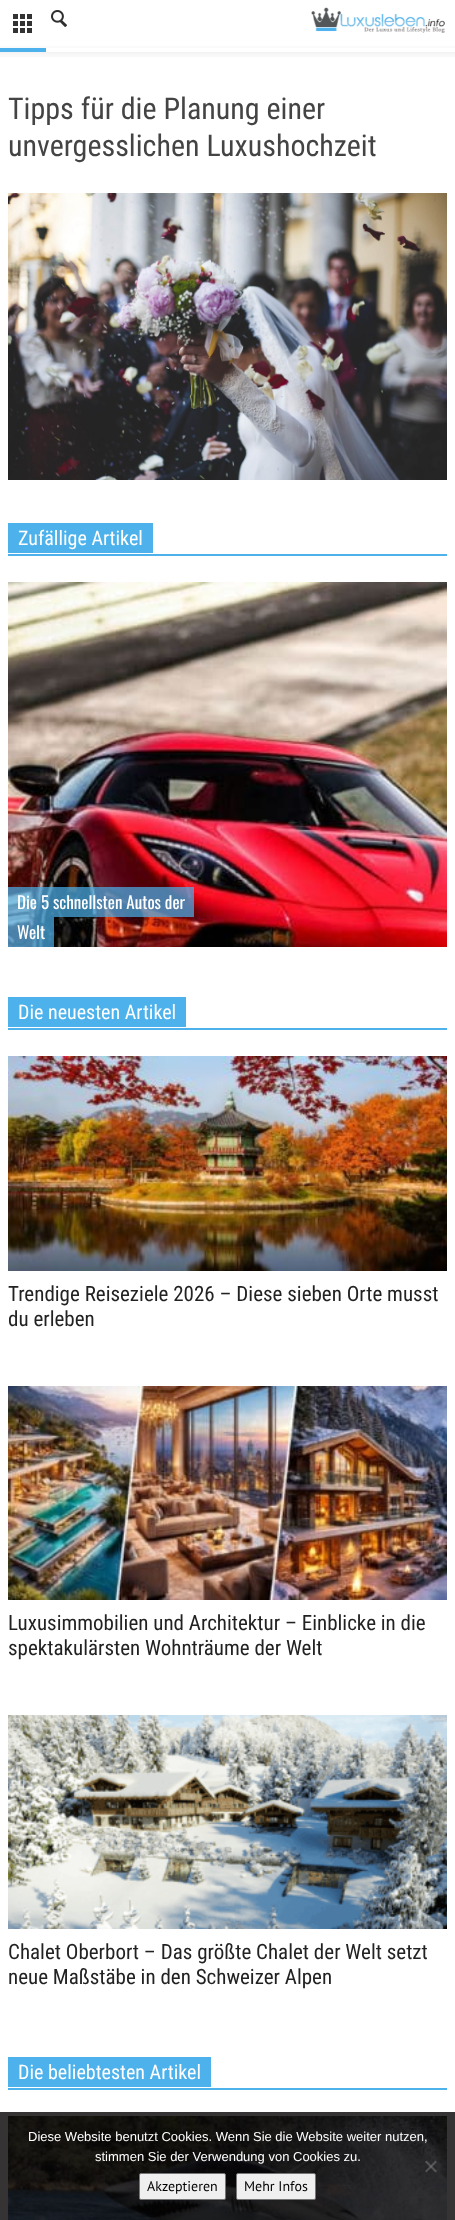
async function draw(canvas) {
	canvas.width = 455;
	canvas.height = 2220;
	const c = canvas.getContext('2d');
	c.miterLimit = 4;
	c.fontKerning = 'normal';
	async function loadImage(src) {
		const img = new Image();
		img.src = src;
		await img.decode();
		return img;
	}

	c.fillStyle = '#fff';
	c.fillRect(0, 0, 455, 2220);
	c.fillStyle = '#fafafa';
	c.fillRect(0, 46, 455, 2);
	c.fillStyle = '#4db2ec';
	c.fillRect(0, 48, 46, 4);
	c.drawImage(await loadImage('img1.png'), 13, 14, 19, 19);
	c.drawImage(await loadImage('img2.png'), 51, 10, 16, 17);
	c.drawImage(await loadImage('img3.png'), 311, 7, 134, 26);
	c.drawImage(await loadImage('img4.png'), 0, 52, 455, 5);
	c.fillStyle = '#353333';
	c.fillRect(0, 2112, 455, 108);
	c.font = '30px Roboto Condensed';
	c.fillStyle = '#444';
	c.fillText('Tipps für die Planung einer', 8, 119);
	c.fillText('unvergesslichen Luxushochzeit', 8, 156);
	c.drawImage(await loadImage('img5.png'), 8, 193, 439, 287);
	c.fillStyle = '#4db2ec';
	c.fillRect(8, 554, 439, 2);
	c.fillRect(8, 523, 145, 30);
	c.font = '20px Roboto Condensed';
	c.fillStyle = '#fff';
	c.fillText('Zufällige Artikel', 18, 545);
	c.drawImage(await loadImage('img6.png'), 8, 582, 439, 365);
	c.fillStyle = '#4db2ecb3';
	c.fillRect(8, 887, 186, 30);
	c.font = '17px Oswald';
	c.fillStyle = '#fff';
	c.fillText('Die 5 schnellsten Autos der', 17, 909);
	c.fillStyle = '#4db2ecb3';
	c.fillRect(8, 917, 46, 30);
	c.fillStyle = '#fff';
	c.fillText('Welt', 17, 939);
	c.fillStyle = '#4db2ec';
	c.fillRect(8, 1028, 439, 2);
	c.fillRect(8, 997, 178, 30);
	c.font = '20px Roboto Condensed';
	c.fillStyle = '#fff';
	c.fillText('Die neuesten Artikel', 18, 1019);
	c.drawImage(await loadImage('img7.png'), 8, 1056, 439, 215);
	c.font = '21px Roboto Condensed';
	c.fillStyle = '#222';
	c.fillText('Trendige Reiseziele 2026 – Diese sieben Orte musst', 8, 1301);
	c.fillText('du erleben', 8, 1326);
	c.drawImage(await loadImage('img8.png'), 8, 1386, 439, 214);
	c.fillText('Luxusimmobilien und Architektur – Einblicke in die', 8, 1630);
	c.fillText('spektakulärsten Wohnträume der Welt', 8, 1655);
	c.drawImage(await loadImage('img9.png'), 8, 1715, 439, 214);
	c.fillText('Chalet Oberbort – Das größte Chalet der Welt setzt', 8, 1959);
	c.fillText('neue Maßstäbe in den Schweizer Alpen', 8, 1984);
	c.fillStyle = '#4db2ec';
	c.fillRect(8, 2088, 439, 2);
	c.fillRect(8, 2057, 203, 30);
	c.font = '20px Roboto Condensed';
	c.fillStyle = '#fff';
	c.fillText('Die beliebtesten Artikel', 18, 2079);
	c.drawImage(await loadImage('img10.png'), 8, 2116, 439, 104);
	c.font = '13px Liberation Sans';
	c.fillText('Diese Website benutzt Cookies. Wenn Sie die Website weiter nutzen,', 28, 2141);
	c.fillText('stimmen Sie der Verwendung von Cookies zu.', 95, 2161);
	c.fillStyle = '#80808080';
	c.beginPath();
	c.moveTo(435.5, 2160.5);
	c.lineTo(437, 2162);
	c.lineTo(426.5, 2172.5);
	c.lineTo(425, 2171);
	c.closePath();
	c.fill();
	c.beginPath();
	c.moveTo(425, 2162);
	c.lineTo(426.5, 2160.5);
	c.lineTo(437, 2171);
	c.lineTo(435.5, 2172.5);
	c.closePath();
	c.fill();
	c.fillStyle = '#efefef';
	c.beginPath();
	c.roundRect(139.5, 2173.5, 86, 26, 1.5);
	c.fill();
	c.strokeStyle = '#767676';
	c.stroke();
	c.font = '14px PT Sans';
	c.fillStyle = '#000';
	c.fillText('Akzeptieren', 147, 2191);
	c.fillStyle = '#efefef';
	c.beginPath();
	c.roundRect(236.5, 2173.5, 79, 26, 1.5);
	c.fill();
	c.stroke();
	c.fillStyle = '#000';
	c.fillText('Mehr Infos', 244, 2191);
}

draw(document.querySelector('canvas'));
